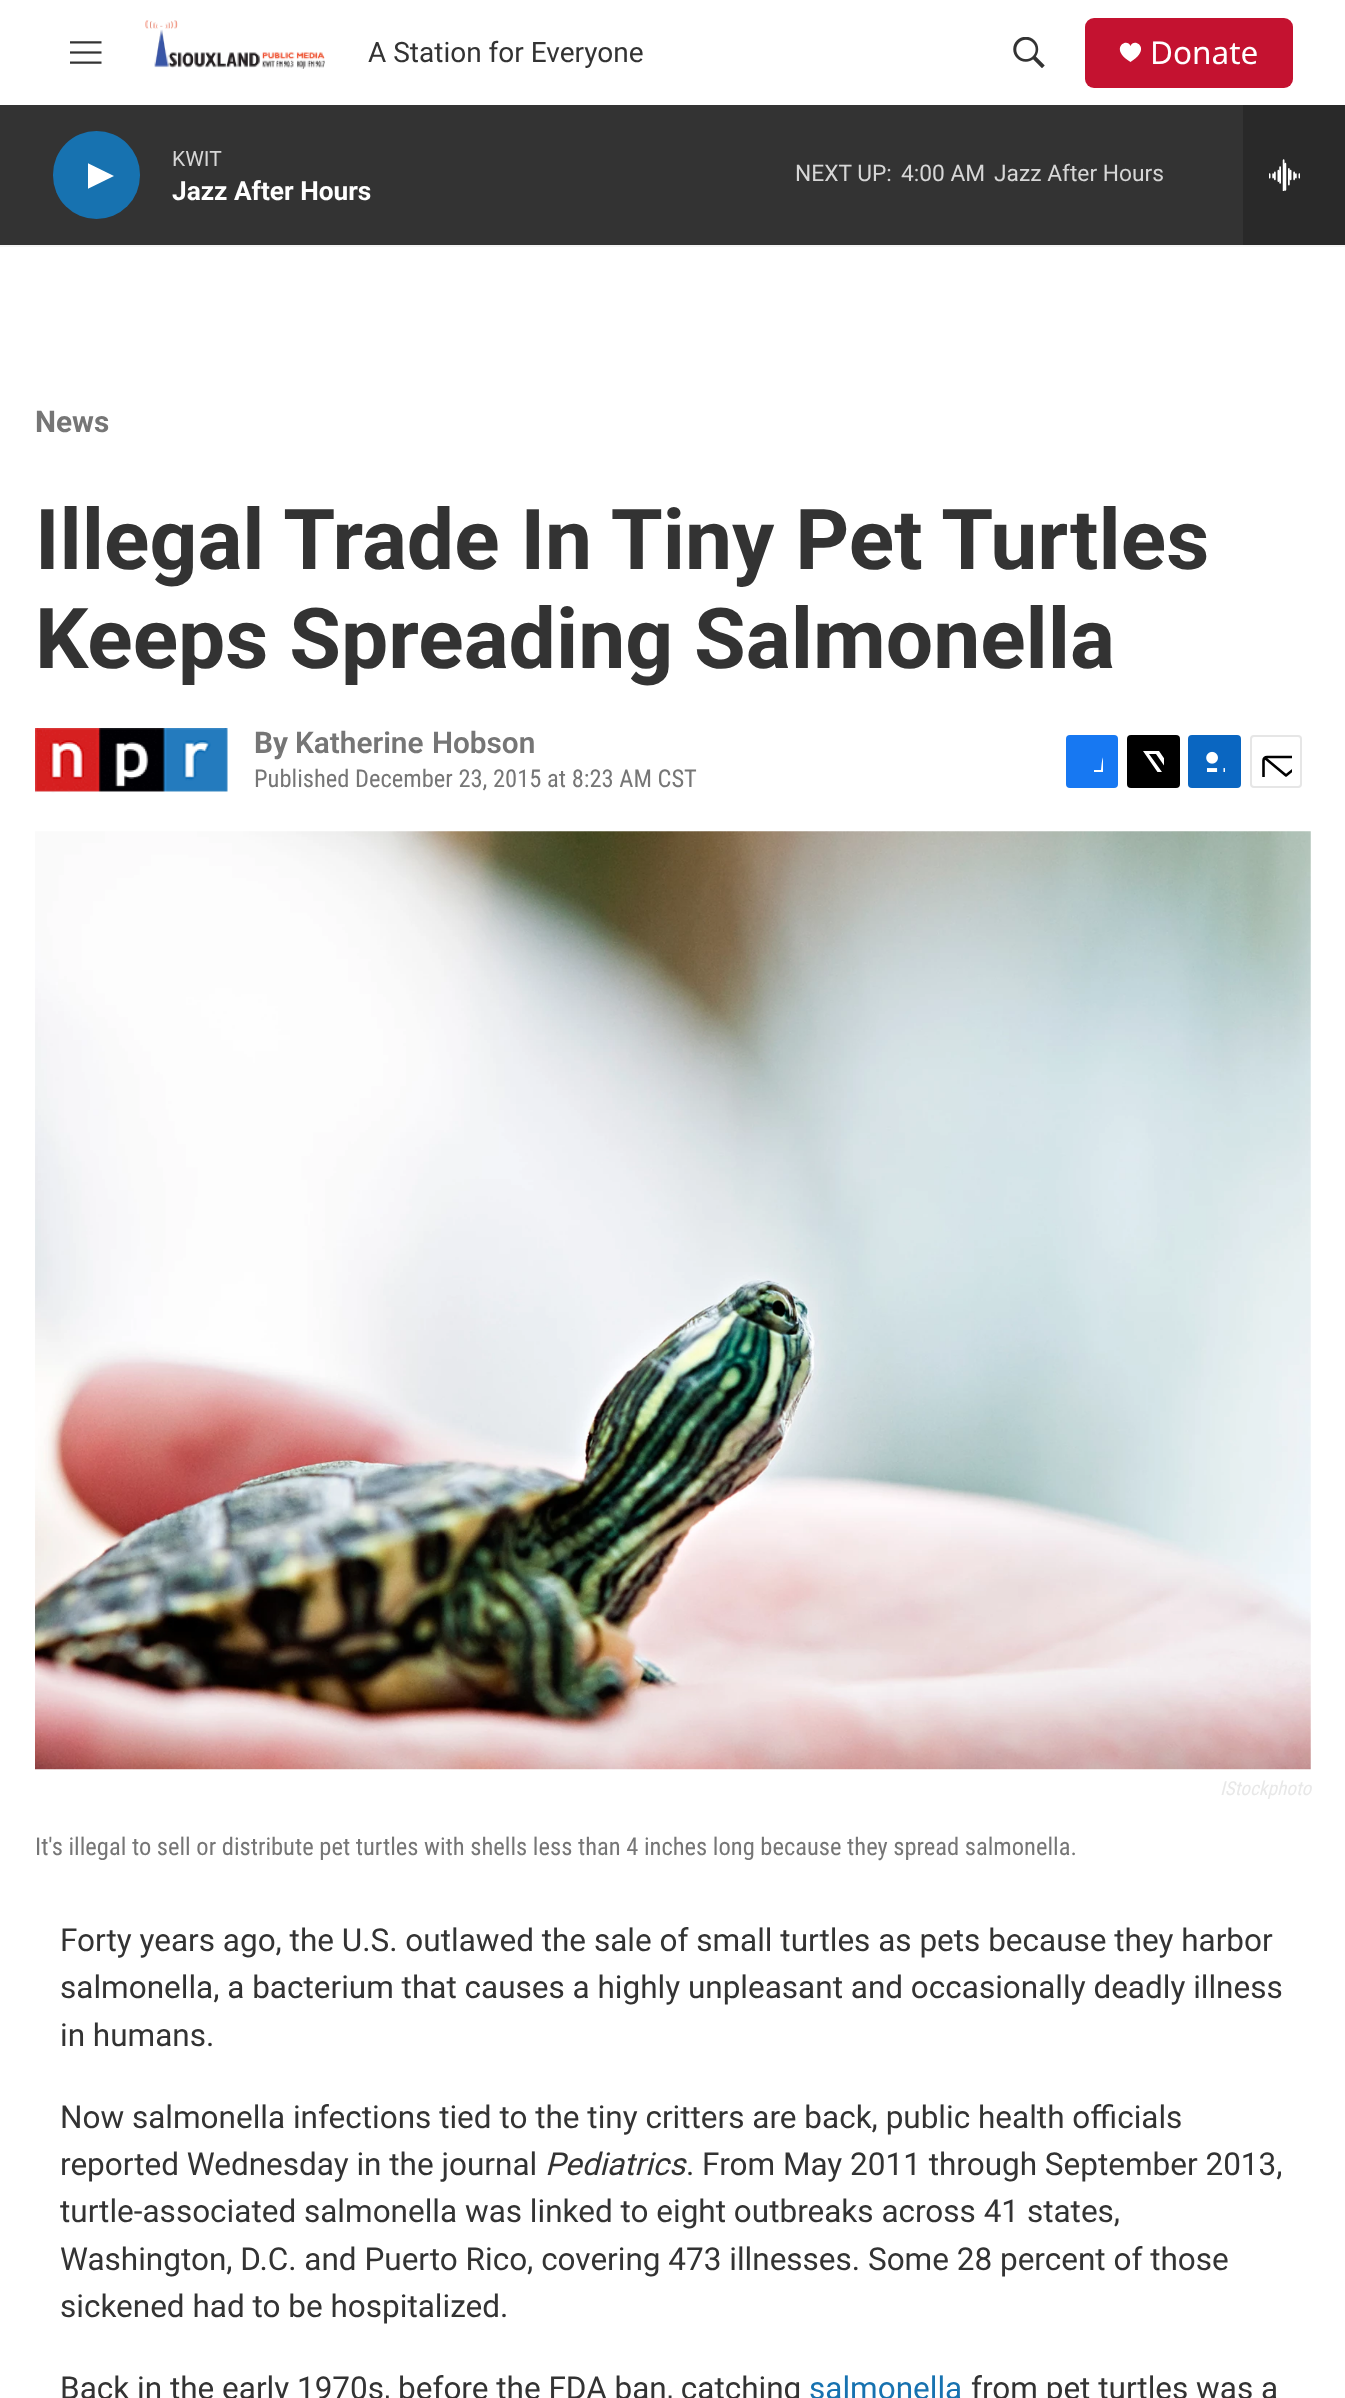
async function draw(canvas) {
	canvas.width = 1345;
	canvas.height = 2398;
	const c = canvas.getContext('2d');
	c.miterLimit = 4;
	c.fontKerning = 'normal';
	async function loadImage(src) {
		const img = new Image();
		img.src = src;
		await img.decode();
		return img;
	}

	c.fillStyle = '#fff';
	c.fillRect(0, 0, 1345, 2398);
	c.fillStyle = '#f5f5f5';
	c.fillRect(0, 245, 1345, 2);
	c.drawImage(await loadImage('img1.png'), 70, 41, 32, 23);
	c.drawImage(await loadImage('img2.png'), 145, 20, 180, 49);
	c.font = '28px Roboto';
	c.fillStyle = '#333';
	c.fillText('A Station for Everyone', 368, 62);
	c.drawImage(await loadImage('img3.png'), 1013, 37, 32, 31);
	c.fillStyle = '#c41230';
	c.beginPath();
	c.roundRect(1085, 18, 208, 70, 9);
	c.fill();
	c.fillStyle = '#fff';
	c.beginPath();
	c.moveTo(1130.5, 46);
	c.bezierCurveTo(1127, 37, 1108.5, 48.5, 1130.5, 62);
	c.bezierCurveTo(1152.5, 48.5, 1134, 37, 1130.5, 46);
	c.closePath();
	c.fill();
	c.font = '31.5px Noto Sans';
	c.fillText('Donate', 1150, 64);
	c.fillStyle = '#333';
	c.fillRect(0, 105, 1243, 140);
	c.fillStyle = '#1772b0';
	c.beginPath();
	c.roundRect(53, 131, 87, 88, 43.5);
	c.fill();
	c.save();
	c.beginPath();
	c.rect(88, 159, 26, 34);
	c.clip();
	c.fillStyle = '#fff';
	c.beginPath();
	c.moveTo(87.5, 163);
	c.lineTo(114, 176);
	c.lineTo(87.5, 189);
	c.closePath();
	c.fill();
	c.restore();
	c.font = '21px Roboto';
	c.fillStyle = '#d6d6d6';
	c.fillText('KWIT', 172, 166);
	c.font = 'bold 26.25px "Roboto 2"';
	c.fillStyle = '#fff';
	c.fillText('Jazz After Hours', 172, 200);
	c.font = '22.75px Roboto';
	c.fillStyle = '#d6d6d6';
	for (const [text, x, y] of [
		['NEXT UP:', 795, 181],
		['4:00 AM', 901, 181],
		['Jazz After Hours', 994, 181],
	]) {
		c.fillText(text, x, y);
	}
	c.fillStyle = '#292929';
	c.fillRect(1243, 105, 102, 140);
	c.drawImage(await loadImage('img4.png'), 1269, 159, 31, 32);
	c.font = 'bold 29.75px Roboto';
	c.fillStyle = '#767676';
	c.fillText('News', 35, 432);
	c.font = 'bold 84px Roboto';
	c.fillStyle = '#333';
	c.fillText('Illegal Trade In Tiny Pet Turtles', 35, 569);
	c.fillText('Keeps Spreading Salmonella', 35, 668);
	c.drawImage(await loadImage('img5.png'), 35, 728, 193, 65);
	c.font = 'bold 29.75px Roboto';
	c.fillStyle = '#767676';
	c.fillText('By', 254, 753);
	c.wordSpacing = '1px';
	c.font = '600 29.75px Roboto';
	c.fillText('Katherine Hobson', 295, 753);
	c.wordSpacing = '0px';
	c.font = '24.5px Roboto Condensed';
	c.fillText('Published December 23, 2015 at 8:23 AM CST', 254, 787);
	c.fillStyle = '#1778f2';
	c.beginPath();
	c.roundRect(1066, 735, 52, 53, 4);
	c.fill();
	c.save();
	c.beginPath();
	c.rect(1082, 751, 21, 21);
	c.clip();
	c.fillStyle = '#fff';
	c.beginPath();
	c.moveTo(1111, 788);
	c.lineTo(1101, 788);
	c.lineTo(1101, 779);
	c.lineTo(1094, 779);
	c.lineTo(1094, 770);
	c.lineTo(1101, 770);
	c.bezierCurveTo(1102.5, 757, 1101.5, 750, 1118, 752);
	c.lineTo(1118, 760);
	c.bezierCurveTo(1109, 760, 1111, 762, 1111, 770);
	c.lineTo(1118, 770);
	c.lineTo(1118, 779);
	c.lineTo(1111, 779);
	c.closePath();
	c.fill();
	c.restore();
	c.fillStyle = '#000';
	c.beginPath();
	c.roundRect(1127, 735, 53, 53, 4);
	c.fill();
	c.save();
	c.beginPath();
	c.rect(1143, 751, 21, 21);
	c.clip();
	c.fillStyle = '#fff';
	c.beginPath();
	c.moveTo(1174, 773);
	c.lineTo(1180, 781.5);
	c.bezierCurveTo(1180, 783.5, 1180.5, 785.5, 1179, 787);
	c.lineTo(1156, 754);
	c.lineTo(1149, 754);
	c.lineTo(1173.5, 788);
	c.lineTo(1168.5, 788);
	c.lineTo(1165, 783);
	c.lineTo(1161, 788);
	c.lineTo(1156, 788);
	c.lineTo(1163, 780);
	c.lineTo(1143, 751);
	c.lineTo(1159, 751);
	c.lineTo(1172, 770);
	c.lineTo(1180, 760.5);
	c.lineTo(1180, 766);
	c.closePath();
	c.fill();
	c.restore();
	c.fillStyle = '#0a66c1';
	c.beginPath();
	c.roundRect(1188, 735, 53, 53, 4);
	c.fill();
	c.drawImage(await loadImage('img6.png'), 1206, 751, 19, 21);
	c.beginPath();
	c.roundRect(1251, 736, 50, 51, 3);
	c.strokeStyle = '#e6e6e6';
	c.lineWidth = 2;
	c.stroke();
	c.save();
	c.beginPath();
	c.rect(1260, 746, 32, 31);
	c.clip();
	c.beginPath();
	c.moveTo(1309, 784);
	c.bezierCurveTo(1309, 785.5, 1307.5, 787, 1305.5, 787);
	c.lineTo(1267, 787);
	c.bezierCurveTo(1265, 787, 1263.5, 785.5, 1263.5, 784);
	c.lineTo(1263.5, 760.5);
	c.bezierCurveTo(1263.5, 758.5, 1265, 757, 1267, 757);
	c.lineTo(1305.5, 757);
	c.bezierCurveTo(1307.5, 757, 1309, 758.5, 1309, 760.5);
	c.closePath();
	c.moveTo(1307.5, 758);
	c.lineTo(1286, 775.5);
	c.lineTo(1265, 758);
	c.strokeStyle = '#000';
	c.lineWidth = 2.6;
	c.lineCap = 'round';
	c.lineJoin = 'round';
	c.stroke();
	c.restore();
	c.drawImage(await loadImage('img7.png'), 35, 831, 1276, 939);
	c.font = 'italic 19.25px Roboto Condensed';
	c.fillStyle = '#e8e8e8';
	c.fillText('IStockphoto', 1220, 1795);
	c.font = '24.5px Roboto Condensed';
	c.fillStyle = '#767676';
	c.fillText('It\'s illegal to sell or distribute pet turtles with shells less than 4 inches long because they spread salmonella.', 35, 1855);
	c.font = '31.5px Roboto';
	c.fillStyle = '#333';
	for (const [text, x, y] of [
		['Forty years ago, the U.S. outlawed the sale of small turtles as pets because they harbor', 60, 1951],
		['salmonella, a bacterium that causes a highly unpleasant and occasionally deadly illness', 60, 1998],
		['in humans.', 60, 2046],
		['Now salmonella infections tied to the tiny critters are back, public health officials', 60, 2128],
		['reported Wednesday in the journal', 60, 2175],
	]) {
		c.fillText(text, x, y);
	}
	c.font = 'italic 31.5px Roboto';
	c.fillText('Pediatrics', 545, 2175);
	c.font = '31.5px Roboto';
	for (const [text, x, y] of [
		['. From May 2011 through September 2013,', 686, 2175],
		['turtle-associated salmonella was linked to eight outbreaks across 41 states,', 60, 2222],
		['Washington, D.C. and Puerto Rico, covering 473 illnesses. Some 28 percent of those', 60, 2270],
		['sickened had to be hospitalized.', 60, 2317],
		['Back in the early 1970s, before the FDA ban, catching', 60, 2399],
	]) {
		c.fillText(text, x, y);
	}
	c.fillStyle = '#1772b0';
	c.fillText('salmonella', 809, 2399);
	c.fillStyle = '#333';
	c.fillText('from pet turtles was a', 971, 2399);
}

draw(document.querySelector('canvas'));
